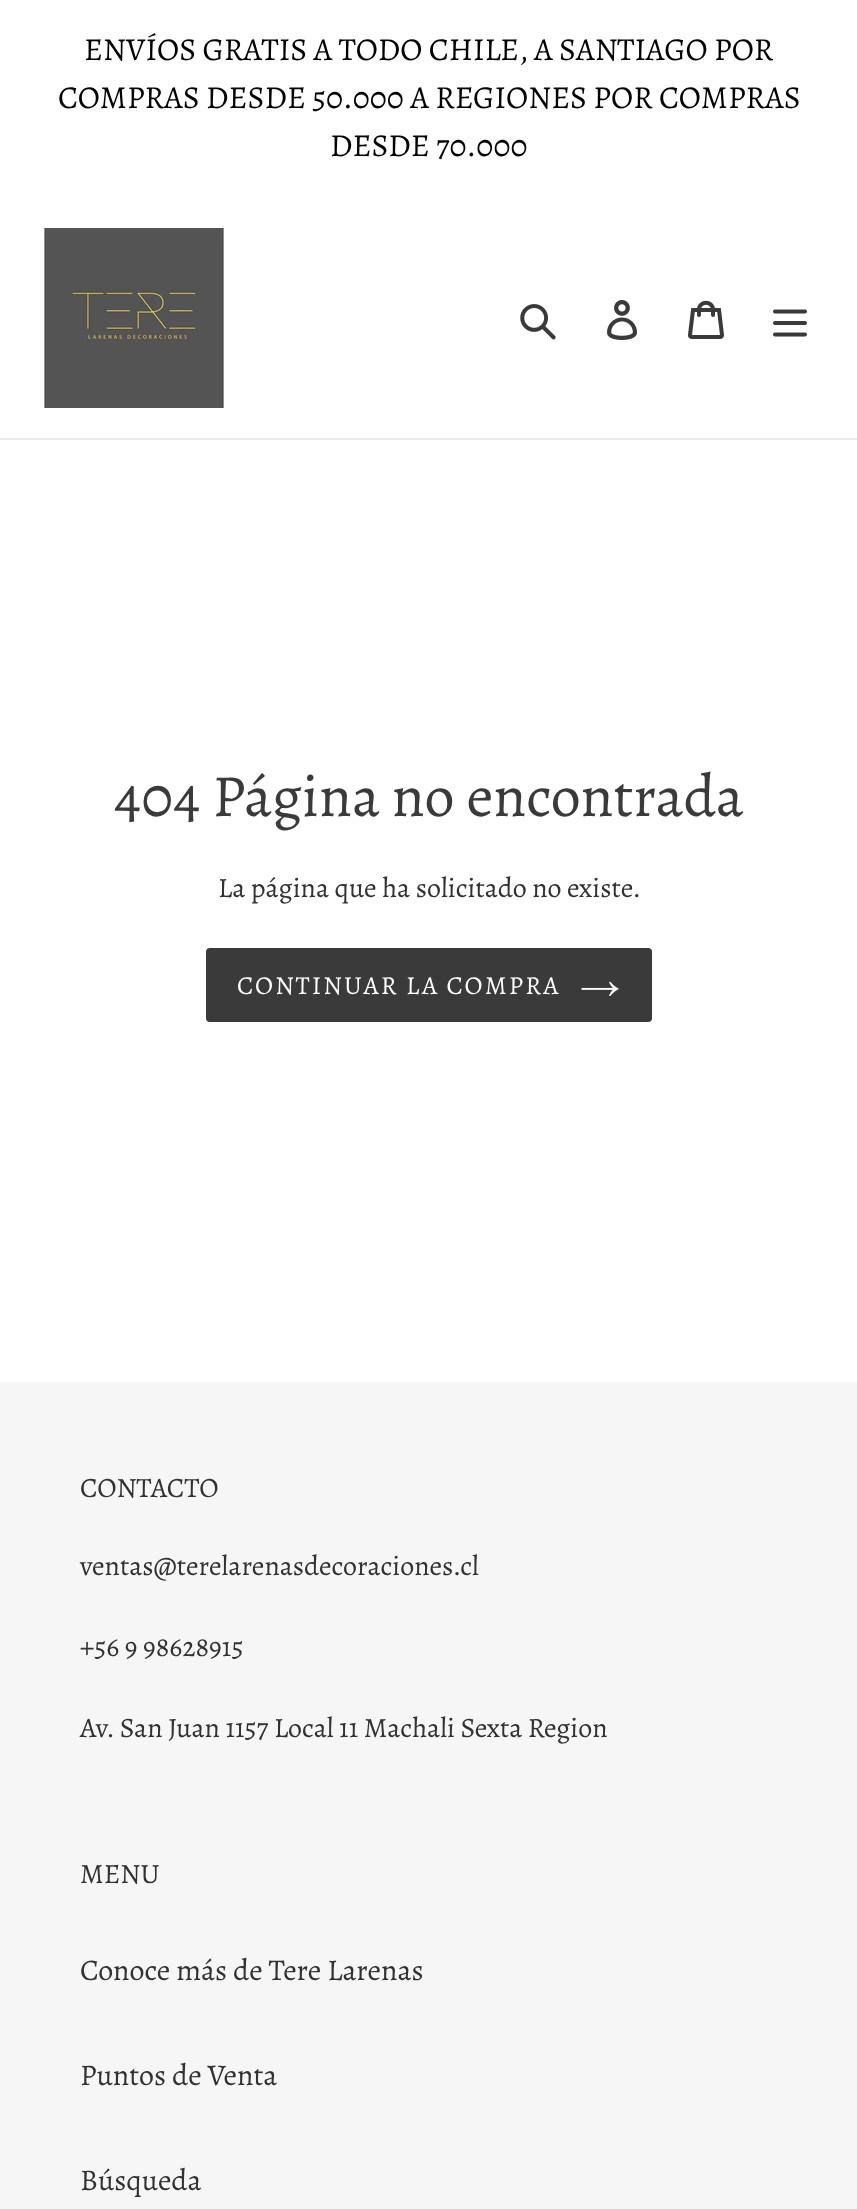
async function draw(canvas) {
	canvas.width = 857;
	canvas.height = 2209;
	const c = canvas.getContext('2d');
	c.miterLimit = 4;
	c.fontKerning = 'normal';
	async function loadImage(src) {
		const img = new Image();
		img.src = src;
		await img.decode();
		return img;
	}

	c.fillStyle = '#fff';
	c.fillRect(0, 0, 857, 2209);
	c.font = '32px Alegreya';
	c.fillStyle = '#000';
	for (const [text, x, y] of [
		['ENVÍOS GRATIS A TODO CHILE, A SANTIAGO POR', 84, 60],
		['COMPRAS DESDE 50.000 A REGIONES POR COMPRAS', 58, 108],
		['DESDE 70.000', 330, 156],
	]) {
		c.fillText(text, x, y);
	}
	c.fillStyle = '#ebebeb';
	c.fillRect(0, 438, 857, 2);
	c.drawImage(await loadImage('img1.png'), 44, 228, 180, 180);
	c.drawImage(await loadImage('img2.png'), 520, 304, 36, 36);
	c.drawImage(await loadImage('img3.png'), 607, 300, 31, 40);
	c.drawImage(await loadImage('img4.png'), 688, 300, 36, 39);
	c.drawImage(await loadImage('img5.png'), 773, 309, 34, 28);
	c.font = '60px Alegreya';
	c.fillStyle = '#3a3a3a';
	c.fillText('404 Página no encontrada', 114, 816);
	c.font = '28px Alegreya';
	c.fillStyle = '#333232';
	c.fillText('La página que ha solicitado no existe.', 218, 897);
	c.fillStyle = '#3a3a3a';
	c.beginPath();
	c.roundRect(206, 948, 446, 74, 4);
	c.fill();
	c.letterSpacing = '2.1px';
	c.font = '26px Alegreya';
	c.fillStyle = '#fff';
	c.fillText('CONTINUAR LA COMPRA', 237, 994);
	c.drawImage(await loadImage('img6.png'), 581, 981, 38, 15);
	c.fillStyle = '#f6f6f6';
	c.fillRect(0, 1382, 857, 827);
	c.letterSpacing = '0px';
	c.font = '28px Alegreya';
	c.fillStyle = '#333232';
	for (const [text, x, y] of [
		['CONTACTO', 80, 1497],
		['ventas@terelarenasdecoraciones.cl', 80, 1575],
		['+56 9 98628915', 80, 1656],
		['Av. San Juan 1157 Local 11 Machali Sexta Region', 80, 1737],
		['MENU', 80, 1883],
	]) {
		c.fillText(text, x, y);
	}
	c.font = '30px Alegreya';
	for (const [text, x, y] of [
		['Conoce más de Tere Larenas', 80, 1980],
		['Puntos de Venta', 80, 2085],
		['Búsqueda', 80, 2190],
	]) {
		c.fillText(text, x, y);
	}
}

draw(document.querySelector('canvas'));
